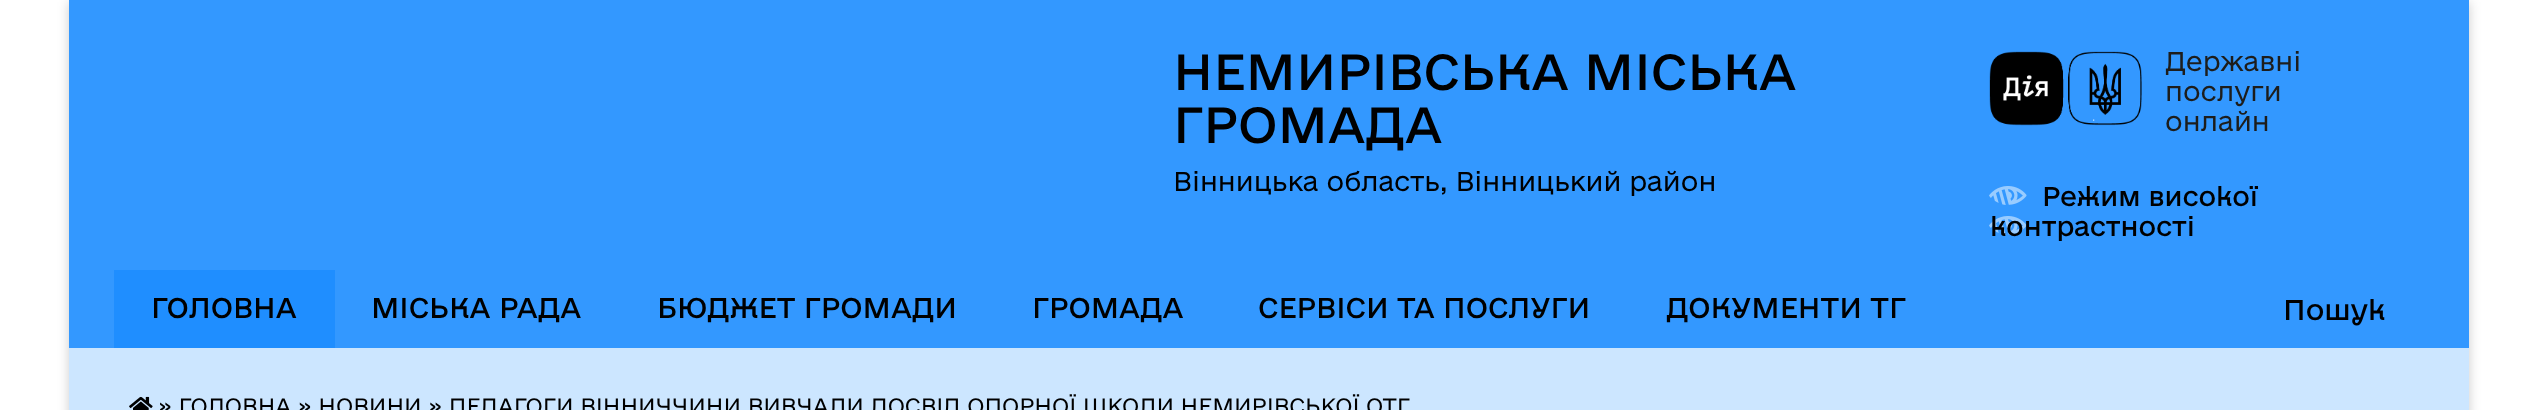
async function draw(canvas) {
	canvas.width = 2536;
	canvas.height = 410;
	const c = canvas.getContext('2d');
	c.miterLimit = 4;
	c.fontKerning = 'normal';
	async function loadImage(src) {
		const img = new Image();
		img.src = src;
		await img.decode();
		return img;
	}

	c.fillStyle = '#fff';
	c.fillRect(0, 0, 2536, 410);
	c.fillStyle = '#00000033';
	c.filter = 'blur(6px)';
	c.beginPath();
	c.rect(69, 2, 2400, 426);
	c.fill();
	c.filter = 'none';
	c.fillStyle = '#3398ff';
	c.fillRect(69, 0, 2400, 348);
	c.font = '48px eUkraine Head';
	c.fillStyle = '#000';
	c.fillText('НЕМИРІВСЬКА МІСЬКА', 1173, 90);
	c.fillText('ГРОМАДА', 1173, 143);
	c.font = '300 25.5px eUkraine';
	c.fillText('Вінницька область, Вінницький район', 1173, 191);
	c.drawImage(await loadImage('img1.png'), 1989, 51, 153, 75);
	c.fillStyle = '#1d1d1b';
	for (const [text, x, y] of [
		['Державні', 2165, 71],
		['послуги', 2165, 101],
		['онлайн', 2165, 131],
	]) {
		c.fillText(text, x, y);
	}
	c.drawImage(await loadImage('img2.png'), 1989, 186, 38, 49);
	c.font = '25.5px eUkraine Head';
	c.fillStyle = '#000';
	c.fillText('Режим високої', 2042, 206);
	c.fillText('контрастності', 1990, 236);
	c.fillStyle = '#1f8eff';
	c.fillRect(114, 270, 221, 78);
	c.font = '27px eUkraine Head';
	c.fillStyle = '#000';
	for (const [text, x, y] of [
		['ГОЛОВНА', 151, 318],
		['МІСЬКА РАДА', 371, 318],
		['БЮДЖЕТ ГРОМАДИ', 657, 318],
		['ГРОМАДА', 1032, 318],
		['СЕРВІСИ ТА ПОСЛУГИ', 1258, 318],
		['ДОКУМЕНТИ ТГ', 1666, 318],
		['Пошук', 2283, 320],
	]) {
		c.fillText(text, x, y);
	}
	c.fillStyle = '#cce6ff';
	c.fillRect(69, 348, 2400, 62);
	c.drawImage(await loadImage('img3.png'), 129, 396, 24, 14);
	c.font = '300 21px eUkraine';
	c.fillStyle = '#000';
	c.fillText('» ГОЛОВНА » НОВИНИ » ПЕДАГОГИ ВІННИЧЧИНИ ВИВЧАЛИ ДОСВІД ОПОРНОЇ ШКОЛИ НЕМИРІВСЬКОЇ ОТГ', 158, 414);
}

draw(document.querySelector('canvas'));
